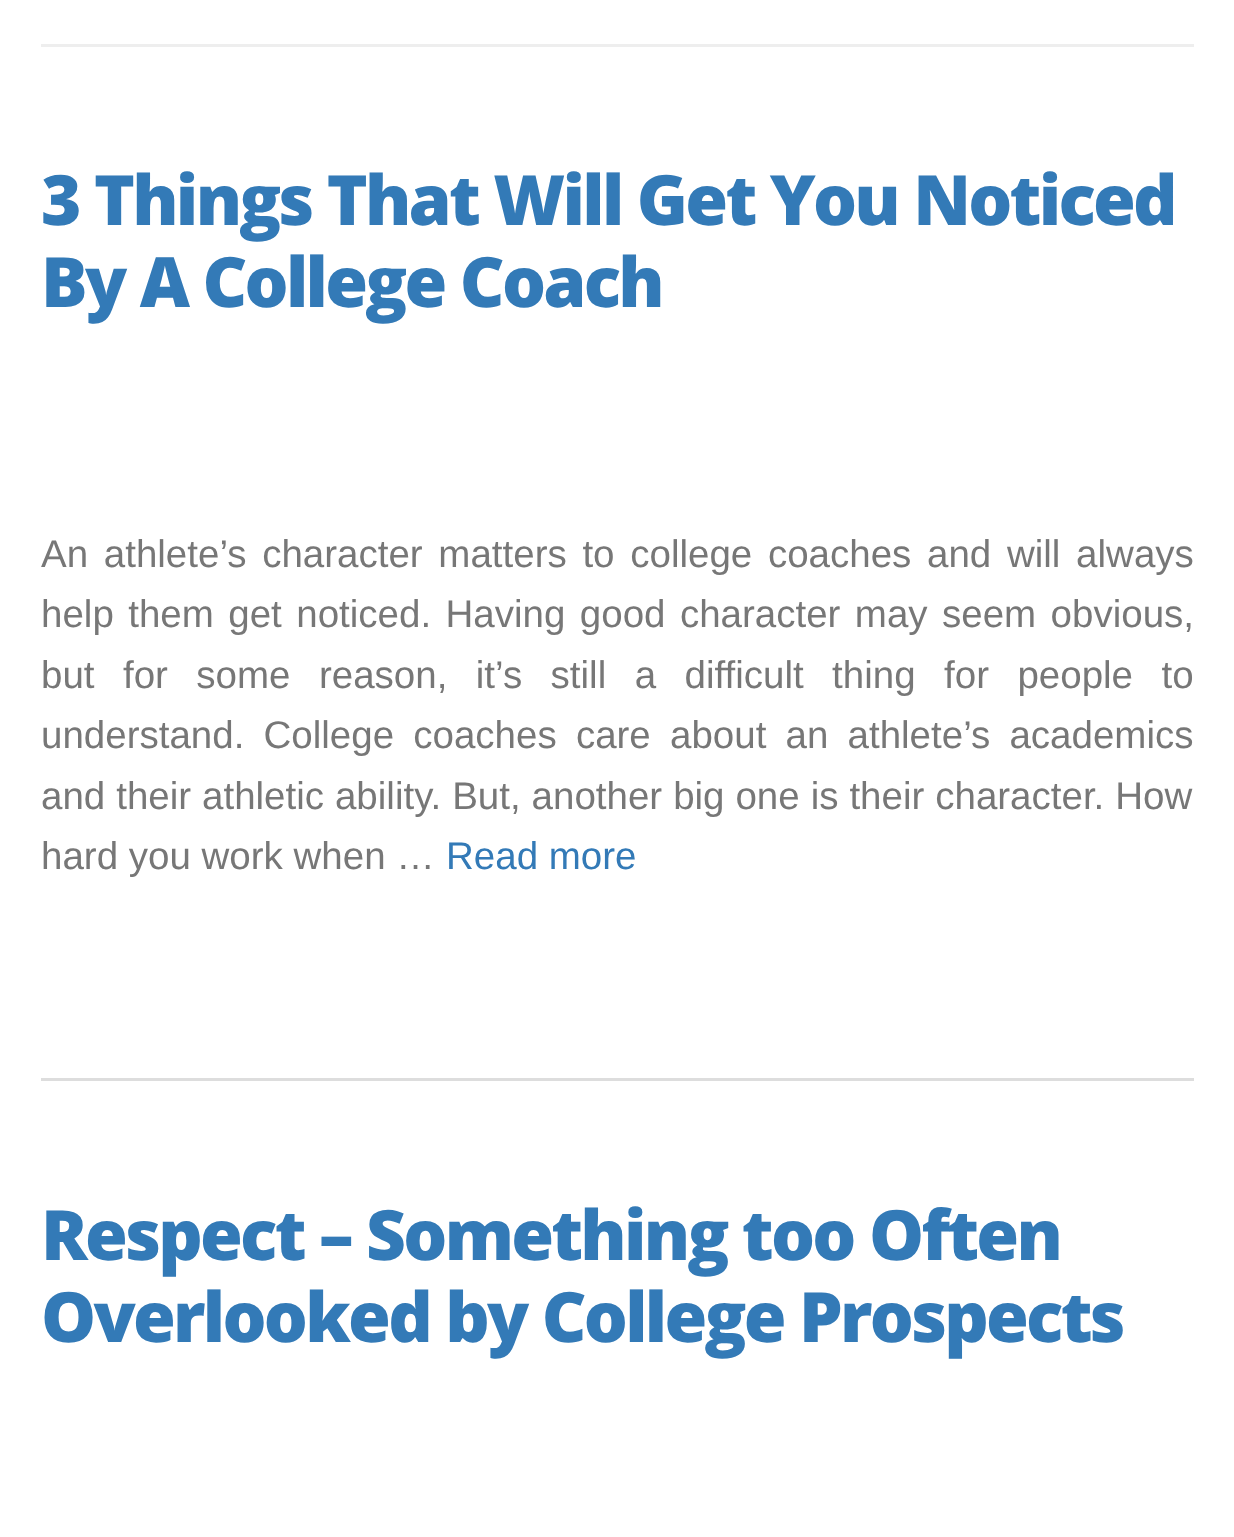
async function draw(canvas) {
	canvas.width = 1234;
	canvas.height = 1537;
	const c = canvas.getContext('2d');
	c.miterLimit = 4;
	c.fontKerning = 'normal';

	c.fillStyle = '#fff';
	c.fillRect(0, 0, 1234, 1537);
	c.fillStyle = '#eee';
	c.fillRect(41, 44, 1153, 3);
	c.fillStyle = '#ddd';
	c.fillRect(41, 1078, 1153, 3);
	c.letterSpacing = '-2.75px';
	c.font = '800 69.25px Open Sans';
	c.fillStyle = '#337ab7';
	c.fillText('3 Things That Will Get You Noticed', 41, 225);
	c.fillText('By A College Coach', 41, 307);
	c.letterSpacing = '0px';
	c.wordSpacing = '5px';
	c.font = '38.5px Liberation Sans';
	c.fillStyle = '#777';
	c.fillText('An athlete’s character matters to college coaches and will always', 41, 567);
	c.wordSpacing = '3.75px';
	c.fillText('help them get noticed. Having good character may seem obvious,', 41, 627);
	c.wordSpacing = '17.75px';
	c.fillText('but for some reason, it’s still a difficult thing for people to', 41, 688);
	c.wordSpacing = '8.5px';
	c.fillText('understand. College coaches care about an athlete’s academics', 41, 748);
	c.wordSpacing = '0.25px';
	c.fillText('and their athletic ability. But, another big one is their character. How', 41, 809);
	c.wordSpacing = '0px';
	c.fillText('hard you work when …', 41, 869);
	c.fillStyle = '#337ab7';
	c.fillText('Read more', 446, 869);
	c.letterSpacing = '-2.75px';
	c.font = '800 69.25px Open Sans';
	c.fillText('Respect – Something too Often', 41, 1260);
	c.fillText('Overlooked by College Prospects', 41, 1342);
}

draw(document.querySelector('canvas'));
